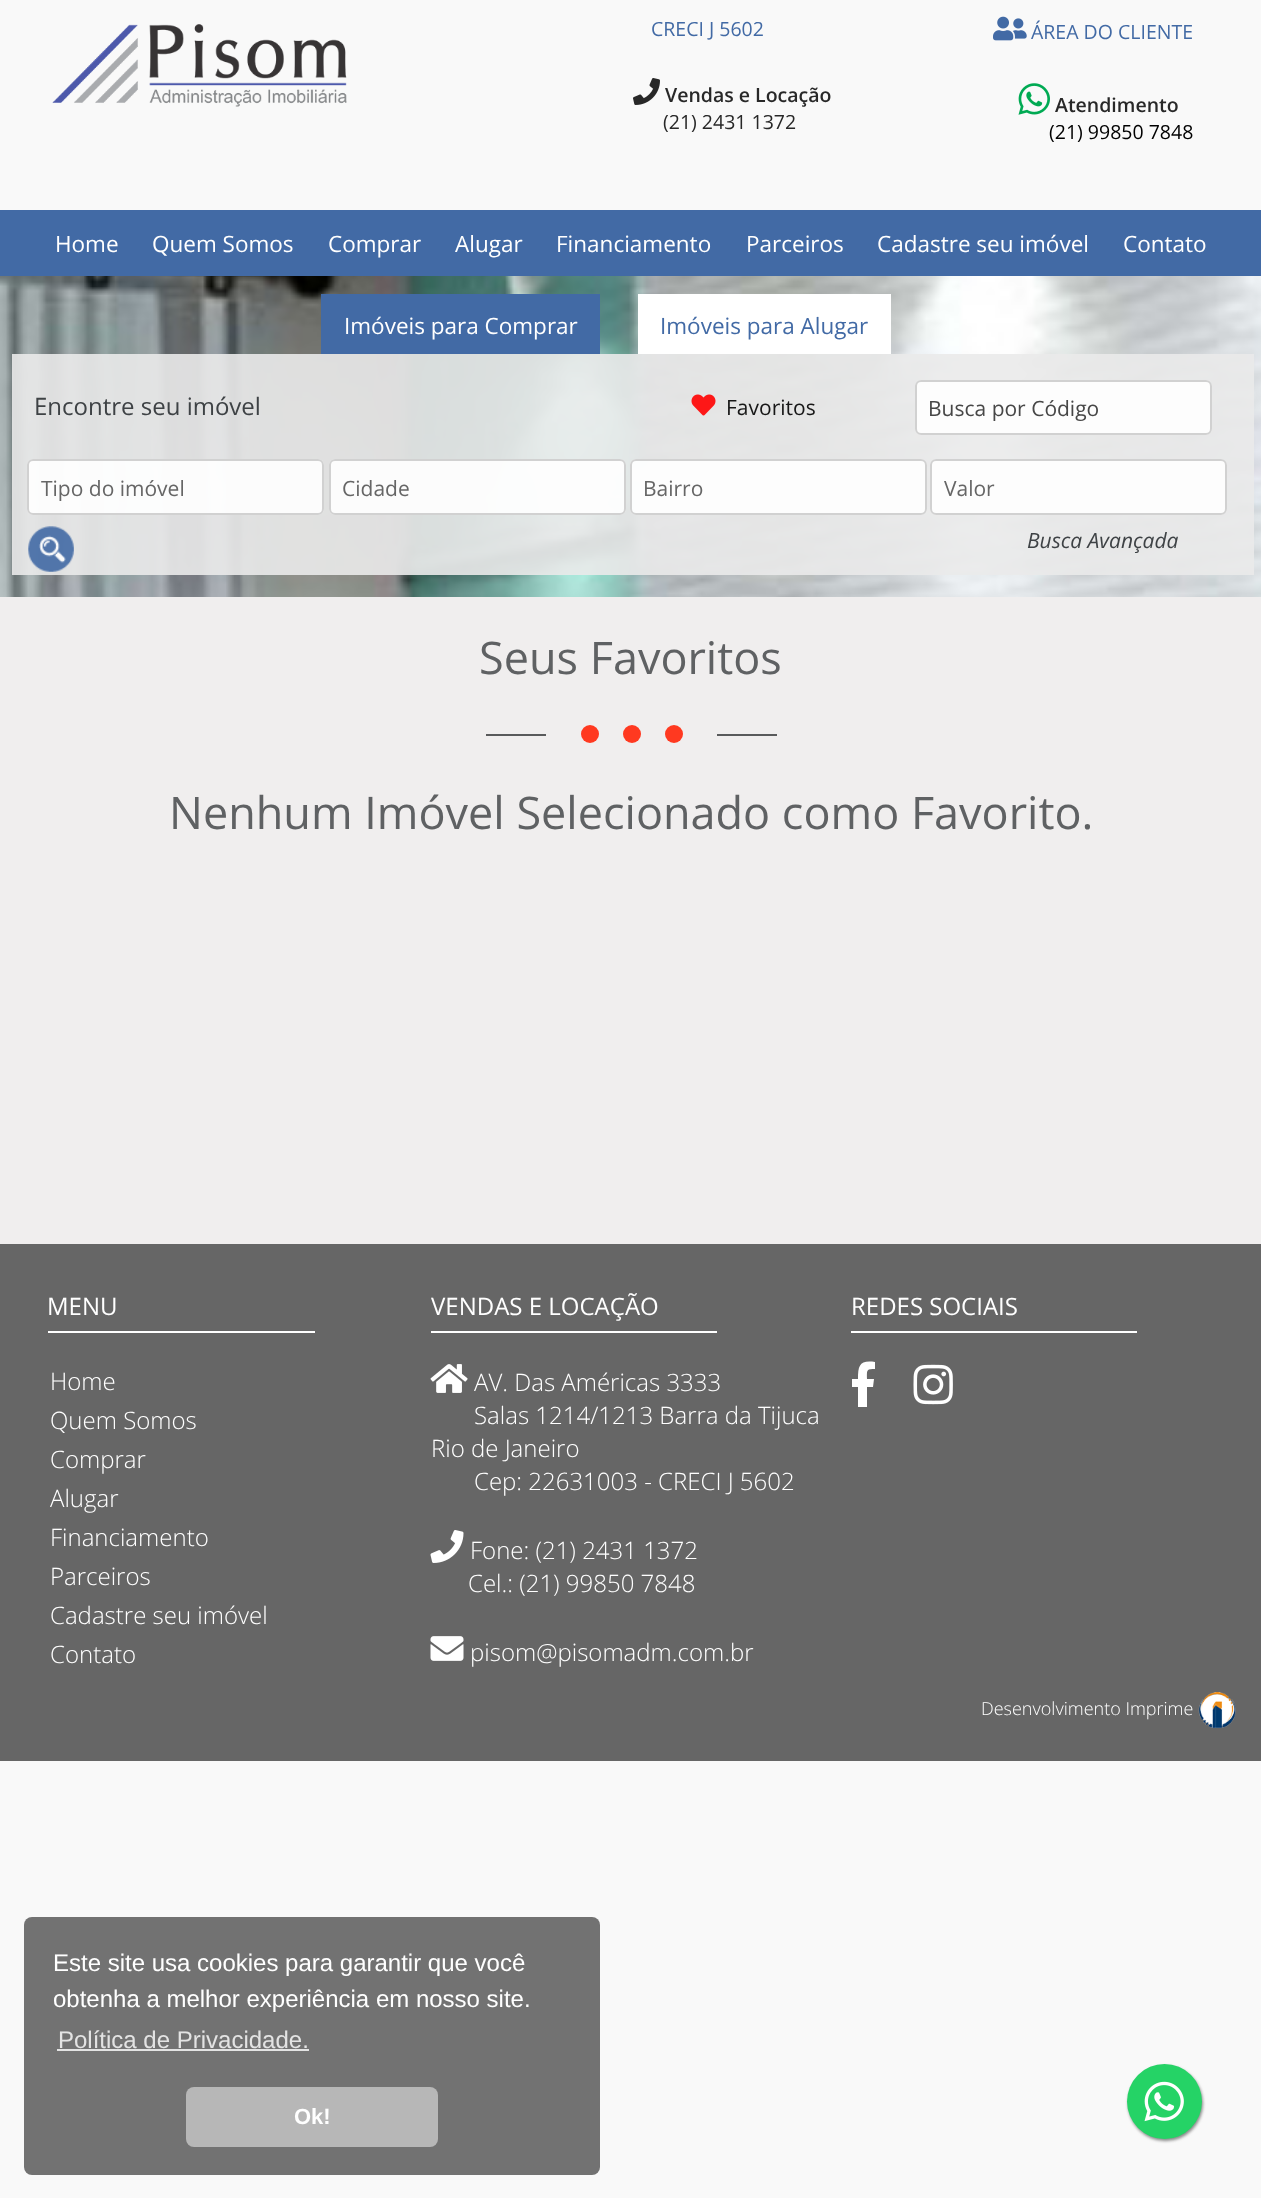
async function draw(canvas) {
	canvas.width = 1261;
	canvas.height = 2198;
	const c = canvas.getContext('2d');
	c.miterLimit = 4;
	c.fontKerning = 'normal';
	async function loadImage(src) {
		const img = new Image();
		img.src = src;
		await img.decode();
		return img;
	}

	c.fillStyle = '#f9f9f9';
	c.fillRect(0, 0, 1261, 2198);
	c.drawImage(await loadImage('img1.png'), 52, 24, 295, 83);
	c.font = '19.5px Open Sans';
	c.fillStyle = '#426aa5';
	c.fillText('CRECI J 5602', 651, 36);
	c.drawImage(await loadImage('img2.png'), 633, 78, 27, 27);
	c.font = '600 19.5px Open Sans';
	c.fillStyle = '#282828';
	c.fillText('Vendas e Locação', 665, 102);
	c.font = '19.5px Open Sans';
	c.fillText('(21) 2431 1372', 663, 129);
	c.drawImage(await loadImage('img3.png'), 993, 16, 34, 25);
	c.fillStyle = '#426aa5';
	c.fillText('ÁREA DO CLIENTE', 1031, 39);
	c.drawImage(await loadImage('img4.png'), 1018, 83, 32, 32);
	c.font = '600 19.5px Open Sans';
	c.fillStyle = '#282828';
	c.fillText('Atendimento', 1055, 112);
	c.font = '19.5px Open Sans';
	c.fillStyle = '#000';
	c.fillText('(21) 99850 7848', 1049, 139);
	c.fillStyle = '#426aa5';
	c.fillRect(0, 210, 1261, 66);
	c.font = '22.5px Open Sans';
	c.fillStyle = '#fff';
	for (const [text, x, y] of [
		['Home', 55, 252],
		['Quem Somos', 152, 252],
		['Comprar', 328, 252],
		['Alugar', 455, 252],
		['Financiamento', 556, 252],
		['Parceiros', 746, 252],
		['Cadastre seu imóvel', 877, 252],
		['Contato', 1123, 252],
	]) {
		c.fillText(text, x, y);
	}
	c.drawImage(await loadImage('img5.png'), 0, 276, 1261, 321);
	c.fillStyle = '#426aa5';
	c.fillRect(321, 294, 279, 60);
	c.fillStyle = '#fff';
	c.fillText('Imóveis para Comprar', 344, 334);
	c.fillRect(638, 294, 253, 60);
	c.fillStyle = '#426aa5';
	c.fillText('Imóveis para Alugar', 660, 334);
	c.fillStyle = '#eaeaeae6';
	c.fillRect(12, 354, 1242, 221);
	c.font = '24px Open Sans';
	c.fillStyle = '#3e4245';
	c.fillText('Encontre seu imóvel', 34, 415);
	c.drawImage(await loadImage('img6.png'), 691, 394, 25, 22);
	c.font = '21px Open Sans';
	c.fillStyle = '#171717';
	c.fillText('Favoritos', 726, 415);
	c.fillStyle = '#ffffffe6';
	c.beginPath();
	c.roundRect(915, 380, 297, 55, 6);
	c.fill();
	c.beginPath();
	c.roundRect(916, 381, 295, 53, 5);
	c.strokeStyle = '#cccccce6';
	c.lineWidth = 2;
	c.stroke();
	c.fillStyle = '#474747';
	c.fillText('Busca por Código', 928, 416);
	c.fillStyle = '#ffffffe6';
	c.beginPath();
	c.roundRect(27, 459, 297, 56, 6);
	c.fill();
	c.beginPath();
	c.roundRect(28, 460, 295, 54, 5);
	c.stroke();
	c.fillStyle = '#666';
	c.fillText('Tipo do imóvel', 41, 496);
	c.fillStyle = '#ffffffe6';
	c.beginPath();
	c.roundRect(329, 459, 297, 56, 6);
	c.fill();
	c.beginPath();
	c.roundRect(330, 460, 295, 54, 5);
	c.stroke();
	c.fillStyle = '#666';
	c.fillText('Cidade', 342, 496);
	c.fillStyle = '#ffffffe6';
	c.beginPath();
	c.roundRect(630, 459, 297, 56, 6);
	c.fill();
	c.beginPath();
	c.roundRect(631, 460, 295, 54, 5);
	c.stroke();
	c.fillStyle = '#666';
	c.fillText('Bairro', 643, 496);
	c.fillStyle = '#ffffffe6';
	c.beginPath();
	c.roundRect(930, 459, 297, 56, 6);
	c.fill();
	c.beginPath();
	c.roundRect(931, 460, 295, 54, 5);
	c.stroke();
	c.fillStyle = '#666';
	c.fillText('Valor', 944, 496);
	c.drawImage(await loadImage('img7.png'), 28, 526, 46, 46);
	c.font = 'italic 21px Open Sans';
	c.fillStyle = '#3e4245';
	c.fillText('Busca Avançada', 1027, 548);
	c.fillStyle = '#f0eeee';
	c.fillRect(0, 597, 1261, 647);
	c.font = '45px Open Sans';
	c.fillStyle = '#5f6163';
	c.fillText('Seus Favoritos', 479, 674);
	c.fillStyle = '#595a5b';
	c.fillRect(486, 734, 60, 2);
	c.fillStyle = '#ff3920';
	c.beginPath();
	c.arc(590, 734, 9, 0, 2 * Math.PI);
	c.fill();
	c.beginPath();
	c.arc(632, 734, 9, 0, 2 * Math.PI);
	c.fill();
	c.beginPath();
	c.arc(674, 734, 9, 0, 2 * Math.PI);
	c.fill();
	c.fillStyle = '#595a5b';
	c.fillRect(717, 734, 60, 2);
	c.fillStyle = '#5f6163';
	c.fillText('Nenhum Imóvel Selecionado como Favorito.', 169, 829);
	c.fillStyle = '#666';
	c.fillRect(0, 1244, 1261, 517);
	c.font = '24px Open Sans';
	c.fillStyle = '#fff';
	c.fillText('MENU', 47, 1315);
	c.fillRect(48, 1331, 267, 2);
	c.font = '300 24px Open Sans';
	for (const [text, x, y] of [
		['Home', 50, 1390],
		['Quem Somos', 50, 1429],
		['Comprar', 50, 1468],
		['Alugar', 50, 1507],
		['Financiamento', 50, 1546],
		['Parceiros', 50, 1585],
		['Cadastre seu imóvel', 50, 1624],
		['Contato', 50, 1663],
	]) {
		c.fillText(text, x, y);
	}
	c.font = '24px Open Sans';
	c.fillText('VENDAS E LOCAÇÃO', 431, 1315);
	c.fillRect(431, 1331, 286, 2);
	c.drawImage(await loadImage('img8.png'), 430, 1364, 38, 29);
	c.font = '300 24px Open Sans';
	for (const [text, x, y] of [
		['AV. Das Américas 3333', 474, 1391],
		['Salas 1214/1213 Barra da Tijuca', 474, 1424],
		['Rio de Janeiro', 431, 1457],
		['Cep: 22631003 - CRECI J 5602', 474, 1490],
	]) {
		c.fillText(text, x, y);
	}
	c.drawImage(await loadImage('img9.png'), 430, 1530, 34, 33);
	c.fillText('Fone: (21) 2431 1372', 470, 1559);
	c.fillText('Cel.: (21) 99850 7848', 468, 1592);
	c.drawImage(await loadImage('img10.png'), 430, 1636, 34, 25);
	c.fillText('pisom@pisomadm.com.br', 470, 1661);
	c.font = '24px Open Sans';
	c.fillText('REDES SOCIAIS', 851, 1315);
	c.fillRect(851, 1331, 286, 2);
	c.beginPath();
	c.moveTo(858, 1407);
	c.lineTo(858, 1387);
	c.lineTo(852, 1387);
	c.lineTo(852, 1379);
	c.lineTo(858, 1379);
	c.bezierCurveTo(858, 1365, 860, 1360, 875, 1362);
	c.lineTo(875, 1369);
	c.bezierCurveTo(866, 1369, 867, 1370, 867, 1379);
	c.lineTo(874, 1379);
	c.lineTo(873, 1387);
	c.lineTo(867, 1387);
	c.lineTo(867, 1407);
	c.fill();
	c.drawImage(await loadImage('img11.png'), 913, 1364, 40, 41);
	c.font = '300 18px Open Sans';
	c.fillText('Desenvolvimento Imprime', 981, 1715);
	c.drawImage(await loadImage('img12.png'), 1198, 1692, 38, 36);
	c.fillStyle = '#727272';
	c.beginPath();
	c.roundRect(24, 1917, 576, 258, 8);
	c.fill();
	c.font = '24px Liberation Sans';
	c.fillStyle = '#fff';
	c.fillText('Este site usa cookies para garantir que você', 53, 1971);
	c.fillText('obtenha a melhor experiência em nosso site.', 53, 2007);
	c.fillStyle = '#e3e3e3';
	c.fillText('Política de Privacidade.', 58, 2048);
	c.fillRect(57, 2049, 252, 2);
	c.fillStyle = '#b7b7b7';
	c.beginPath();
	c.roundRect(186, 2087, 252, 60, 8);
	c.fill();
	c.font = 'bold 22px Liberation Sans';
	c.fillStyle = '#fff';
	c.fillText('Ok!', 294, 2124);
	c.fillStyle = '#888';
	c.filter = 'blur(1.5px)';
	c.beginPath();
	c.roundRect(1128, 2066, 75, 75, 37.5);
	c.fill();
	c.filter = 'none';
	c.fillStyle = '#25d366';
	c.beginPath();
	c.arc(1164.5, 2101.5, 37.5, 0, 2 * Math.PI);
	c.fill();
	c.drawImage(await loadImage('img13.png'), 1144, 2081, 40, 41);
}

draw(document.querySelector('canvas'));
